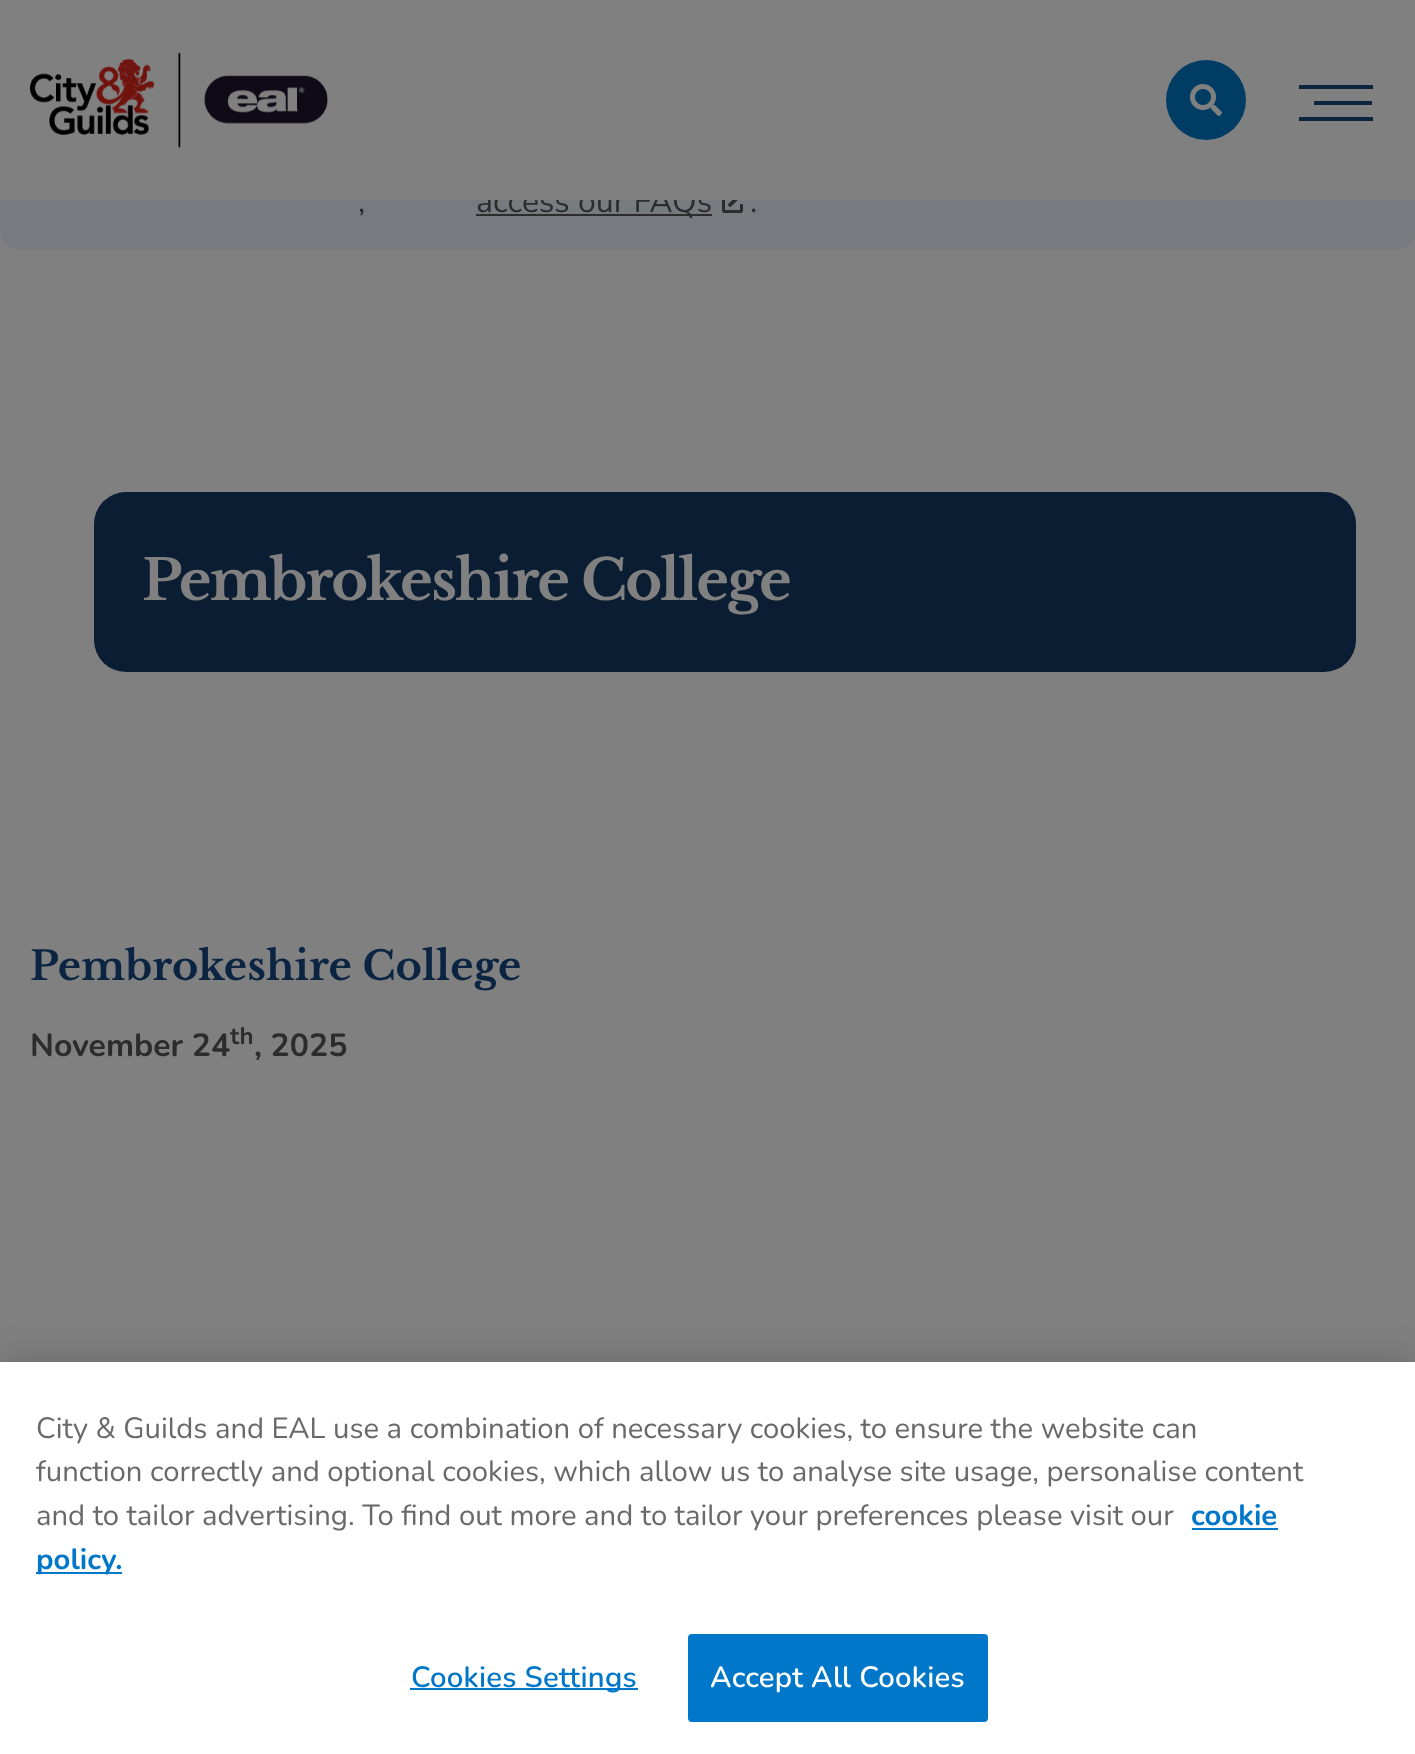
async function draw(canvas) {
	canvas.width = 1415;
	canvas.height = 1754;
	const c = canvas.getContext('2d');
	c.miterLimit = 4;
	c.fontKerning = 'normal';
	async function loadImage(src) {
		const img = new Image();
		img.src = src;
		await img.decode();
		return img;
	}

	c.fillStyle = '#808080';
	c.fillRect(0, 0, 1415, 1754);
	c.fillStyle = '#777b80';
	c.beginPath();
	c.roundRect(0, 58, 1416, 192, 20);
	c.fill();
	c.fillStyle = '#2c2c2c';
	c.fillRect(476, 214, 236, 2);
	c.font = '32px Nunito';
	c.fillText('access our FAQs', 476, 212);
	c.fillStyle = '#808080';
	c.fillRect(0, 58, 1415, 142);
	c.drawImage(await loadImage('img1.png'), 30, 52, 298, 96);
	c.fillStyle = '#003c64';
	c.beginPath();
	c.arc(1206, 100, 40, 0, 2 * Math.PI);
	c.fill();
	c.drawImage(await loadImage('img2.png'), 1190, 84, 32, 32);
	for (const [x, y, w, h, color] of [
		[1299, 85, 74, 4, '#0d243f'],
		[1314, 101, 58, 4, '#0d243f'],
		[1299, 117, 74, 4, '#0d243f'],
	]) {
		c.fillStyle = color;
		c.fillRect(x, y, w, h);
	}
	c.fillStyle = '#2c2c2c';
	c.fillText(',', 358, 212);
	c.drawImage(await loadImage('img3.png'), 722, 200, 21, 13);
	c.fillText('.', 750, 212);
	c.fillStyle = '#0b1d33';
	c.beginPath();
	c.roundRect(94, 492, 1262, 180, 32);
	c.fill();
	c.letterSpacing = '-1.9px';
	c.font = 'bold 56px Libre Baskerville';
	c.fillStyle = '#808080';
	c.fillText('Pembrokeshire College', 142, 600);
	c.letterSpacing = '0px';
	c.font = 'bold 40px Libre Baskerville';
	c.fillStyle = '#0a2441';
	c.fillText('Pembrokeshire College', 30, 980);
	c.font = 'bold 32px Nunito';
	c.fillStyle = '#2c2c2c';
	c.fillText('November 24', 30, 1056);
	c.font = 'bold 24px Nunito';
	c.fillText('th', 230, 1044);
	c.font = 'bold 32px Nunito';
	c.fillText(', 2025', 254, 1056);
	c.fillStyle = '#00000033';
	c.filter = 'blur(18px)';
	c.beginPath();
	c.rect(0, 1362, 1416, 392);
	c.fill();
	c.filter = 'none';
	c.fillStyle = '#fff';
	c.fillRect(0, 1362, 1415, 392);
	c.font = '29.25px Nunito';
	c.fillStyle = '#696969';
	for (const [text, x, y] of [
		['City & Guilds and EAL use a combination of necessary cookies, to ensure the website can', 36, 1438],
		['function correctly and optional cookies, which allow us to analyse site usage, personalise content', 36, 1481],
		['and to tailor advertising. To find out more and to tailor your preferences please visit our', 36, 1525],
	]) {
		c.fillText(text, x, y);
	}
	c.font = 'bold 29.25px Nunito';
	c.fillStyle = '#0077c8';
	c.fillText('cookie', 1191, 1525);
	c.fillRect(1192, 1528, 86, 2);
	c.fillRect(36, 1572, 86, 2);
	c.fillText('policy.', 36, 1569);
	c.fillRect(410, 1688, 228, 2);
	c.letterSpacing = '0.25px';
	c.font = '600 29.25px Nunito';
	c.fillText('Cookies Settings', 411, 1687);
	c.beginPath();
	c.roundRect(689, 1635, 298, 86, 3);
	c.fill();
	c.strokeStyle = '#0077c8';
	c.lineWidth = 2;
	c.stroke();
	c.fillStyle = '#fff';
	c.fillText('Accept All Cookies', 710, 1687);
}

draw(document.querySelector('canvas'));
